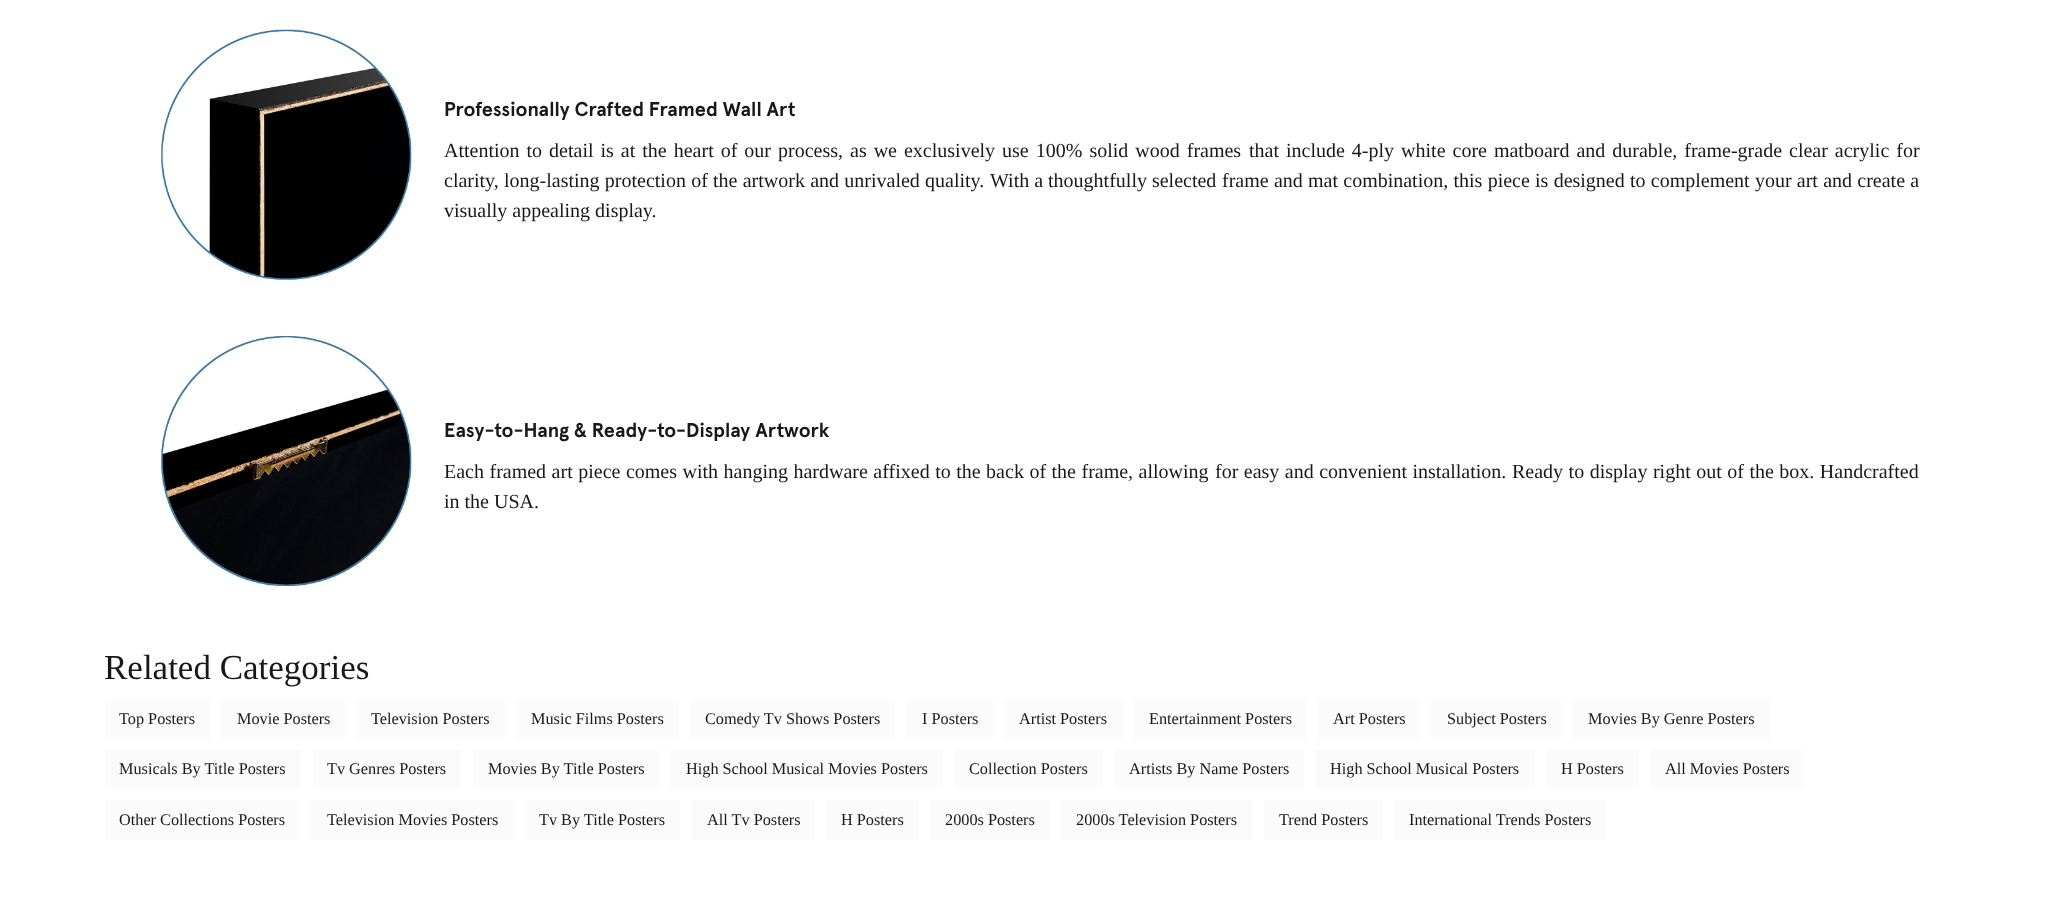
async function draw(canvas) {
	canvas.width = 2068;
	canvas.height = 922;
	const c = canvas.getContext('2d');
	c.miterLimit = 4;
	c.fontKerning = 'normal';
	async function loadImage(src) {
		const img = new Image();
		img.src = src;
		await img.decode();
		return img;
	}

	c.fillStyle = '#fff';
	c.fillRect(0, 0, 2068, 922);
	c.drawImage(await loadImage('img1.png'), 161, 29, 251, 251);
	c.font = 'bold 20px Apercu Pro';
	c.fillStyle = '#181818';
	c.fillText('Professionally Crafted Framed Wall Art', 444, 116);
	c.wordSpacing = '2px';
	c.font = '20px Liberation Serif';
	c.fillText('Attention to detail is at the heart of our process, as we exclusively use 100% solid wood frames', 444, 157);
	c.fillText('that include 4-ply white core matboard and durable, frame-grade clear acrylic for', 1249, 157);
	c.wordSpacing = '0px';
	c.fillText('clarity,', 444, 187);
	c.wordSpacing = '0.25px';
	c.fillText('long-lasting protection of the artwork and unrivaled quality.', 504, 187);
	c.wordSpacing = '0px';
	c.fillText('With a thoughtfully selected', 990, 187);
	c.wordSpacing = '0.25px';
	c.fillText('frame and mat combination, this piece is designed to complement your art and create a', 1222, 187);
	c.wordSpacing = '0px';
	c.fillText('visually appealing display.', 444, 217);
	c.drawImage(await loadImage('img2.png'), 161, 336, 251, 250);
	c.font = 'bold 20px Apercu Pro';
	c.fillText('Easy-to-Hang & Ready-to-Display Artwork', 444, 437);
	c.wordSpacing = '0.5px';
	c.font = '20px Liberation Serif';
	for (const [text, x, y] of [
		['Each framed art piece comes with hanging hardware affixed to the back of the frame, allowing', 444, 478],
		['for easy and convenient installation.', 1215, 478],
		['Ready to display right out of the box. Handcrafted', 1512, 478],
	]) {
		c.fillText(text, x, y);
	}
	c.wordSpacing = '0px';
	c.fillText('in the USA.', 444, 508);
	c.font = '35px Liberation Serif';
	c.fillText('Related Categories', 104, 679);
	c.fillStyle = '#fbfbfb';
	c.fillRect(105, 699, 105, 40);
	c.font = '16.25px Liberation Serif';
	c.fillStyle = '#181818';
	c.fillText('Top Posters', 119, 724);
	c.fillStyle = '#fbfbfb';
	c.fillRect(221, 699, 124, 40);
	c.fillStyle = '#181818';
	c.fillText('Movie Posters', 237, 724);
	c.fillStyle = '#fbfbfb';
	c.fillRect(356, 699, 149, 40);
	c.fillStyle = '#181818';
	c.fillText('Television Posters', 371, 724);
	c.fillStyle = '#fbfbfb';
	c.fillRect(516, 699, 163, 40);
	c.fillStyle = '#181818';
	c.fillText('Music Films Posters', 531, 724);
	c.fillStyle = '#fbfbfb';
	c.fillRect(690, 699, 205, 40);
	c.fillStyle = '#181818';
	c.fillText('Comedy Tv Shows Posters', 705, 724);
	c.fillStyle = '#fbfbfb';
	c.fillRect(906, 699, 87, 40);
	c.fillStyle = '#181818';
	c.fillText('I Posters', 922, 724);
	c.fillStyle = '#fbfbfb';
	c.fillRect(1004, 699, 119, 40);
	c.fillStyle = '#181818';
	c.fillText('Artist Posters', 1019, 724);
	c.fillStyle = '#fbfbfb';
	c.fillRect(1134, 699, 172, 40);
	c.fillStyle = '#181818';
	c.fillText('Entertainment Posters', 1149, 724);
	c.fillStyle = '#fbfbfb';
	c.fillRect(1318, 699, 102, 40);
	c.fillStyle = '#181818';
	c.fillText('Art Posters', 1333, 724);
	c.fillStyle = '#fbfbfb';
	c.fillRect(1431, 699, 130, 40);
	c.fillStyle = '#181818';
	c.fillText('Subject Posters', 1447, 724);
	c.fillStyle = '#fbfbfb';
	c.fillRect(1573, 699, 197, 40);
	c.fillStyle = '#181818';
	c.fillText('Movies By Genre Posters', 1588, 724);
	c.fillStyle = '#fbfbfb';
	c.fillRect(105, 750, 196, 39);
	c.fillStyle = '#181818';
	c.fillText('Musicals By Title Posters', 119, 774);
	c.fillStyle = '#fbfbfb';
	c.fillRect(313, 750, 148, 39);
	c.fillStyle = '#181818';
	c.fillText('Tv Genres Posters', 327, 774);
	c.fillStyle = '#fbfbfb';
	c.fillRect(473, 750, 186, 39);
	c.fillStyle = '#181818';
	c.fillText('Movies By Title Posters', 488, 774);
	c.fillStyle = '#fbfbfb';
	c.fillRect(670, 750, 273, 39);
	c.fillStyle = '#181818';
	c.fillText('High School Musical Movies Posters', 686, 774);
	c.fillStyle = '#fbfbfb';
	c.fillRect(954, 750, 149, 39);
	c.fillStyle = '#181818';
	c.fillText('Collection Posters', 969, 774);
	c.fillStyle = '#fbfbfb';
	c.fillRect(1114, 750, 190, 39);
	c.fillStyle = '#181818';
	c.fillText('Artists By Name Posters', 1129, 774);
	c.fillStyle = '#fbfbfb';
	c.fillRect(1315, 750, 220, 39);
	c.fillStyle = '#181818';
	c.fillText('High School Musical Posters', 1330, 774);
	c.fillStyle = '#fbfbfb';
	c.fillRect(1546, 750, 93, 39);
	c.fillStyle = '#181818';
	c.fillText('H Posters', 1561, 774);
	c.fillStyle = '#fbfbfb';
	c.fillRect(1650, 750, 154, 39);
	c.fillStyle = '#181818';
	c.fillText('All Movies Posters', 1665, 774);
	c.fillStyle = '#fbfbfb';
	c.fillRect(105, 800, 195, 40);
	c.fillStyle = '#181818';
	c.fillText('Other Collections Posters', 119, 825);
	c.fillStyle = '#fbfbfb';
	c.fillRect(311, 800, 202, 40);
	c.fillStyle = '#181818';
	c.fillText('Television Movies Posters', 327, 825);
	c.fillStyle = '#fbfbfb';
	c.fillRect(524, 800, 156, 40);
	c.fillStyle = '#181818';
	c.fillText('Tv By Title Posters', 539, 825);
	c.fillStyle = '#fbfbfb';
	c.fillRect(691, 800, 124, 40);
	c.fillStyle = '#181818';
	c.fillText('All Tv Posters', 707, 825);
	c.fillStyle = '#fbfbfb';
	c.fillRect(826, 800, 93, 40);
	c.fillStyle = '#181818';
	c.fillText('H Posters', 841, 825);
	c.fillStyle = '#fbfbfb';
	c.fillRect(930, 800, 120, 40);
	c.fillStyle = '#181818';
	c.fillText('2000s Posters', 945, 825);
	c.fillStyle = '#fbfbfb';
	c.fillRect(1061, 800, 192, 40);
	c.fillStyle = '#181818';
	c.fillText('2000s Television Posters', 1076, 825);
	c.fillStyle = '#fbfbfb';
	c.fillRect(1264, 800, 119, 40);
	c.fillStyle = '#181818';
	c.fillText('Trend Posters', 1279, 825);
	c.fillStyle = '#fbfbfb';
	c.fillRect(1394, 800, 212, 40);
	c.fillStyle = '#181818';
	c.fillText('International Trends Posters', 1409, 825);
}

draw(document.querySelector('canvas'));
